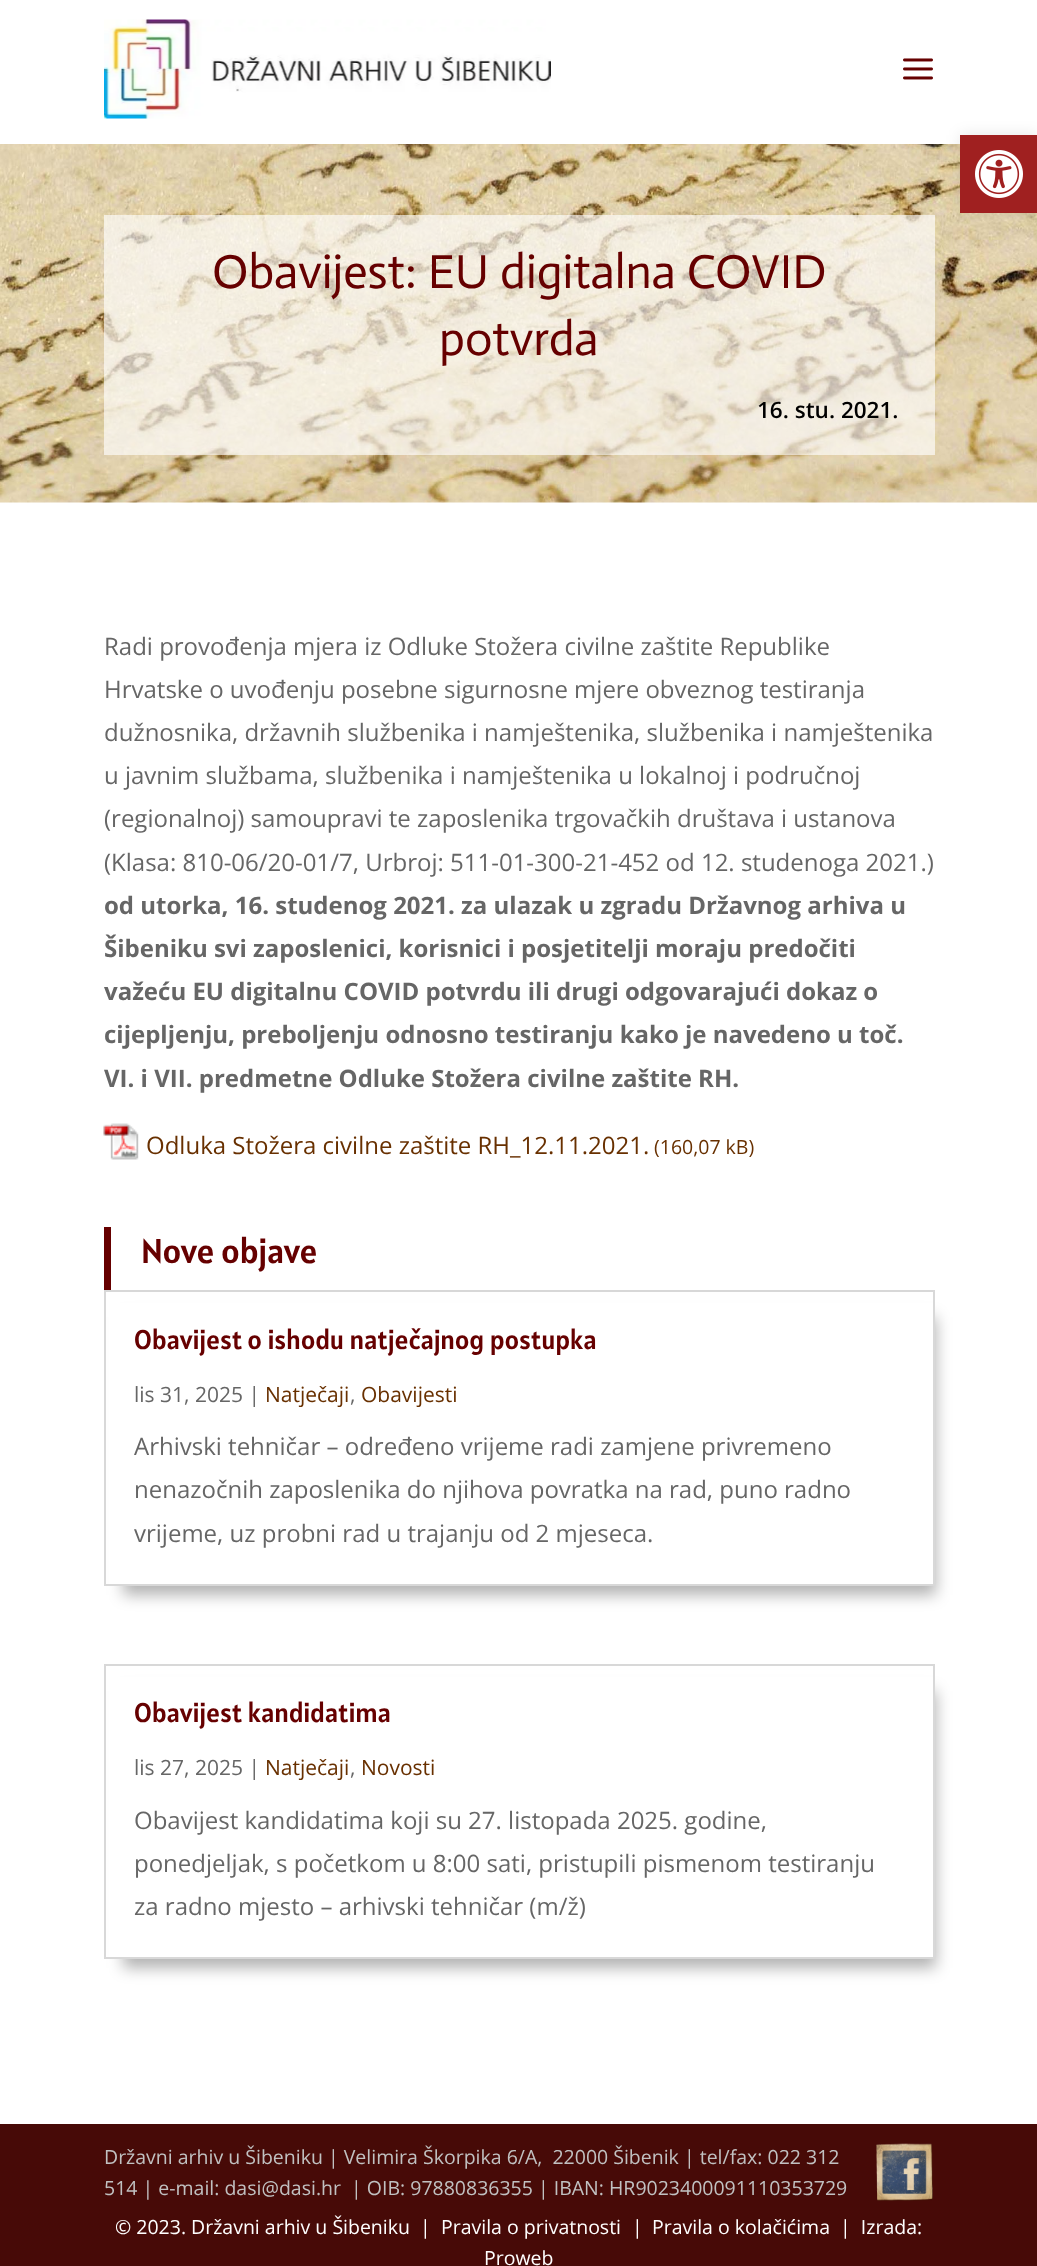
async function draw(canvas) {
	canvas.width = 1037;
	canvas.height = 2266;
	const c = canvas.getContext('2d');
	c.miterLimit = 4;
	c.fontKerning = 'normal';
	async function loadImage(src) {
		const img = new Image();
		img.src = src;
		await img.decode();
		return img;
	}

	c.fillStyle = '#fff';
	c.fillRect(0, 0, 1037, 2266);
	c.drawImage(await loadImage('img4.png'), 0, 144, 1037, 359);
	c.fillStyle = '#0000001a';
	c.filter = 'blur(7.5px)';
	c.beginPath();
	c.rect(960, 135, 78, 78);
	c.fill();
	c.filter = 'none';
	c.fillStyle = '#a02020';
	c.fillRect(960, 135, 77, 78);
	c.drawImage(await loadImage('img1.png'), 975, 150, 48, 48);
	c.drawImage(await loadImage('img2.png'), 104, 19, 447, 100);
	c.drawImage(await loadImage('img3.png'), 903, 58, 30, 22);
	c.fillStyle = '#ffffffa3';
	c.fillRect(104, 215, 831, 240);
	c.font = '48px Actor';
	c.fillStyle = '#600';
	c.fillText('Obavijest: EU digitalna COVID', 212, 288);
	c.fillText('potvrda', 439, 355);
	c.font = '600 22.5px Open Sans';
	c.fillStyle = '#000';
	c.fillText('16. stu. 2021.', 757, 418);
	c.font = '24px Open Sans';
	c.fillStyle = '#666';
	for (const [text, x, y] of [
		['Radi provođenja mjera iz Odluke Stožera civilne zaštite Republike', 104, 655],
		['Hrvatske o uvođenju posebne sigurnosne mjere obveznog testiranja', 104, 698],
		['dužnosnika, državnih službenika i namještenika, službenika i namještenika', 104, 741],
		['u javnim službama, službenika i namještenika u lokalnoj i područnoj', 104, 784],
		['(regionalnoj) samoupravi te zaposlenika trgovačkih društava i ustanova', 104, 827],
		['(Klasa: 810-06/20-01/7, Urbroj: 511-01-300-21-452 od 12. studenoga 2021.)', 104, 871],
	]) {
		c.fillText(text, x, y);
	}
	c.font = 'bold 24px Open Sans';
	for (const [text, x, y] of [
		['od utorka, 16. studenog 2021. za ulazak u zgradu Državnog arhiva u', 104, 914],
		['Šibeniku svi zaposlenici, korisnici i posjetitelji moraju predočiti', 104, 957],
		['važeću EU digitalnu COVID potvrdu ili drugi odgovarajući dokaz o', 104, 1000],
		['cijepljenju, preboljenju odnosno testiranju kako je navedeno u toč.', 104, 1043],
		['VI. i VII. predmetne Odluke Stožera civilne zaštite RH.', 104, 1087],
	]) {
		c.fillText(text, x, y);
	}
	c.drawImage(await loadImage('img5.png'), 103, 1123, 36, 37);
	c.font = '24px Open Sans';
	c.fillStyle = '#683000';
	c.fillText('Odluka Stožera civilne zaštite RH_12.11.2021.', 146, 1154);
	c.font = '19.5px Open Sans';
	c.fillText('(160,07 kB)', 654, 1154);
	c.fillStyle = '#600';
	c.fillRect(104, 1227, 7, 63);
	c.font = '34.5px Alatsi';
	c.fillText('Nove objave', 141, 1263);
	c.fillStyle = '#0000004d';
	c.filter = 'blur(7.5px)';
	c.beginPath();
	c.rect(123, 1317, 813, 278);
	c.fill();
	c.filter = 'none';
	c.fillStyle = '#fff';
	c.fillRect(109, 1303, 824, 281);
	c.strokeStyle = '#d8d8d8';
	c.lineWidth = 2;
	c.strokeRect(105, 1291, 829, 294);
	c.font = '27px Alatsi';
	c.fillStyle = '#600';
	c.fillText('Obavijest o ishodu natječajnog postupka', 134, 1349);
	c.font = '21px Open Sans';
	c.fillStyle = '#666';
	c.fillText('lis 31, 2025 |', 134, 1402);
	c.fillStyle = '#683000';
	c.fillText('Natječaji', 265, 1402);
	c.fillStyle = '#666';
	c.fillText(',', 350, 1402);
	c.fillStyle = '#683000';
	c.fillText('Obavijesti', 361, 1402);
	c.font = '24px Open Sans';
	c.fillStyle = '#666';
	for (const [text, x, y] of [
		['Arhivski tehničar – određeno vrijeme radi zamjene privremeno', 134, 1455],
		['nenazočnih zaposlenika do njihova povratka na rad, puno radno', 134, 1498],
		['vrijeme, uz probni rad u trajanju od 2 mjeseca.', 134, 1542],
	]) {
		c.fillText(text, x, y);
	}
	c.fillStyle = '#0000004d';
	c.filter = 'blur(7.5px)';
	c.beginPath();
	c.rect(123, 1691, 813, 277);
	c.fill();
	c.filter = 'none';
	c.fillStyle = '#fff';
	c.fillRect(109, 1677, 824, 280);
	c.strokeRect(105, 1665, 829, 293);
	c.font = '27px Alatsi';
	c.fillStyle = '#600';
	c.fillText('Obavijest kandidatima', 134, 1722);
	c.font = '21px Open Sans';
	c.fillStyle = '#666';
	c.fillText('lis 27, 2025 |', 134, 1775);
	c.fillStyle = '#683000';
	c.fillText('Natječaji', 265, 1775);
	c.fillStyle = '#666';
	c.fillText(',', 350, 1775);
	c.fillStyle = '#683000';
	c.fillText('Novosti', 361, 1775);
	c.font = '24px Open Sans';
	c.fillStyle = '#666';
	for (const [text, x, y] of [
		['Obavijest kandidatima koji su 27. listopada 2025. godine,', 134, 1829],
		['ponedjeljak, s početkom u 8:00 sati, pristupili pismenom testiranju', 134, 1872],
		['za radno mjesto – arhivski tehničar (m/ž)', 134, 1915],
	]) {
		c.fillText(text, x, y);
	}
	c.fillStyle = '#470a07';
	c.fillRect(0, 2124, 1037, 142);
	c.font = '19.5px Open Sans';
	c.fillStyle = '#c1c1c1';
	c.fillText('Državni arhiv u Šibeniku | Velimira Škorpika 6/A,  22000 Šibenik | tel/fax: 022 312', 104, 2164);
	c.drawImage(await loadImage('img6.png'), 876, 2143, 57, 58);
	c.fillText('514 | e-mail: dasi@dasi.hr  | OIB: 97880836355 | IBAN: HR9023400091110353729', 104, 2195);
	c.fillStyle = '#fff';
	for (const [text, x, y] of [
		['© 2023. Državni arhiv u Šibeniku  |', 115, 2234],
		['Pravila o privatnosti', 441, 2234],
		['|', 632, 2234],
		['Pravila o kolačićima', 652, 2234],
		['|  Izrada:', 840, 2234],
		['Proweb', 484, 2265],
	]) {
		c.fillText(text, x, y);
	}
}

draw(document.querySelector('canvas'));
